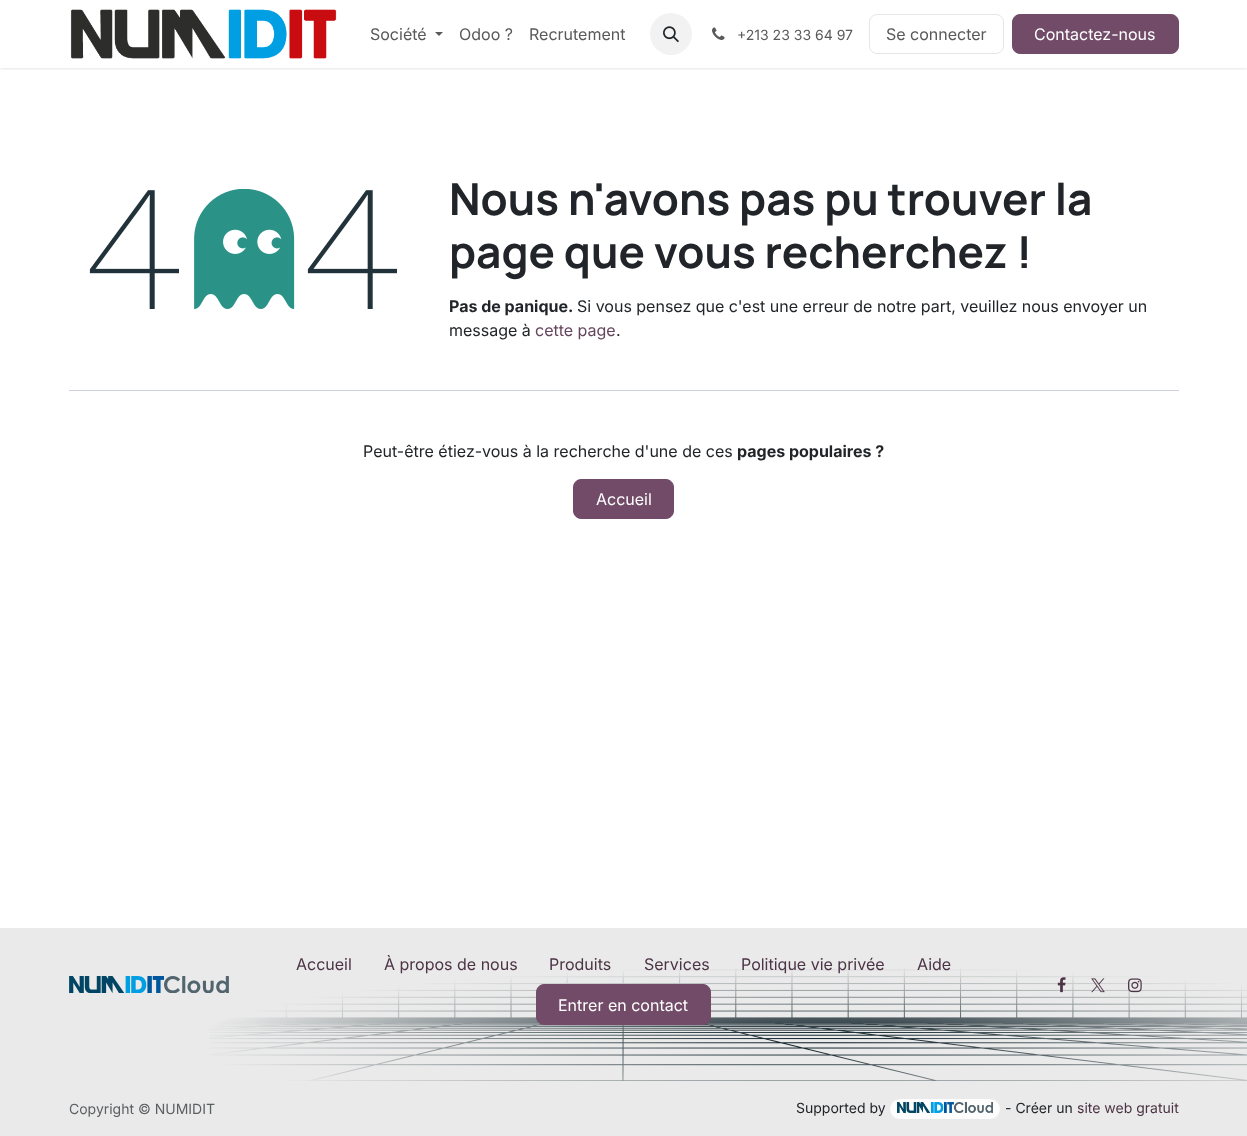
async function draw(canvas) {
	canvas.width = 1247;
	canvas.height = 1136;
	const c = canvas.getContext('2d');
	c.miterLimit = 4;
	c.fontKerning = 'normal';
	async function loadImage(src) {
		const img = new Image();
		img.src = src;
		await img.decode();
		return img;
	}

	c.fillStyle = '#fff';
	c.fillRect(0, 0, 1247, 1136);
	c.save();
	c.beginPath();
	c.rect(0, 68, 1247, 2);
	c.clip();
	c.fillStyle = '#0000001a';
	c.filter = 'blur(1.5px)';
	c.beginPath();
	c.rect(0, 1, 1247, 68);
	c.fill();
	c.filter = 'none';
	c.restore();
	c.drawImage(await loadImage('img1.png'), 70, 9, 267, 50);
	c.font = '16px Inter';
	c.fillStyle = '#595959';
	c.fillText('Société', 370, 40);
	c.beginPath();
	c.moveTo(435, 32);
	c.lineTo(443, 32);
	c.lineTo(439, 36);
	c.closePath();
	c.fill();
	c.fillText('Odoo ?', 459, 40);
	c.fillText('Recrutement', 529, 40);
	c.fillStyle = '#f2f2f2';
	c.beginPath();
	c.arc(671, 34, 21, 0, 2 * Math.PI);
	c.fill();
	c.drawImage(await loadImage('img2.png'), 663, 26, 16, 17);
	c.drawImage(await loadImage('img3.png'), 712, 27, 13, 13);
	c.font = '14px Inter';
	c.fillStyle = '#595959';
	c.fillText('+213 23 33 64 97', 737, 40);
	c.beginPath();
	c.roundRect(869.5, 14.5, 134, 39, 7.5);
	c.strokeStyle = '#e6e6e6';
	c.stroke();
	c.font = '16px Inter';
	c.fillText('Se connecter', 886, 40);
	c.fillStyle = '#714b67';
	c.beginPath();
	c.roundRect(1012.5, 14.5, 166, 39, 7.5);
	c.fill();
	c.strokeStyle = '#714b67';
	c.stroke();
	c.fillStyle = '#fff';
	c.fillText('Contactez-nous', 1034, 40);
	c.drawImage(await loadImage('img4.png'), 89, 189, 308, 120);
	c.font = 'bold 44px Manrope';
	c.fillStyle = '#212529';
	c.fillText('Nous n\'avons pas pu trouver la', 449, 215);
	c.fillText('page que vous recherchez !', 449, 268);
	c.font = 'bold 16px Inter';
	c.fillText('Pas de panique.', 449, 312);
	c.font = '16px Inter';
	c.fillText('Si vous pensez que c\'est une erreur de notre part, veuillez nous envoyer un', 577, 312);
	c.fillText('message à', 449, 336);
	c.fillStyle = '#65435c';
	c.fillText('cette page', 535, 336);
	c.fillStyle = '#212529';
	c.fillText('.', 616, 336);
	c.fillStyle = '#ced4da';
	c.fillRect(69, 390, 1110, 1);
	c.fillStyle = '#212529';
	c.fillText('Peut-être étiez-vous à la recherche d\'une de ces', 363, 457);
	c.font = 'bold 16px Inter';
	c.fillText('pages populaires ?', 737, 457);
	c.fillStyle = '#714b67';
	c.beginPath();
	c.roundRect(573.5, 479.5, 100, 39, 7.5);
	c.fill();
	c.stroke();
	c.font = '16px Inter';
	c.fillStyle = '#fff';
	c.fillText('Accueil', 596, 505);
	c.fillStyle = '#eaeaea';
	c.fillRect(0, 928, 1247, 208);
	c.drawImage(await loadImage('img9.png'), 209, 968, 1038, 113);
	c.drawImage(await loadImage('img5.png'), 69, 976, 160, 17);
	c.fillStyle = '#4c3345';
	for (const [text, x, y] of [
		['Accueil', 296, 970],
		['À propos de nous', 384, 970],
		['Produits', 549, 970],
		['Services', 644, 970],
		['Politique vie privée', 741, 970],
		['Aide', 917, 970],
	]) {
		c.fillText(text, x, y);
	}
	c.fillStyle = '#714b67';
	c.beginPath();
	c.roundRect(536.5, 984.5, 174, 40, 7.5);
	c.fill();
	c.stroke();
	c.fillStyle = '#fff';
	c.fillText('Entrer en contact', 558, 1011);
	c.drawImage(await loadImage('img6.png'), 1057, 977, 9, 16);
	c.drawImage(await loadImage('img7.png'), 1091, 978, 14, 15);
	c.drawImage(await loadImage('img8.png'), 1128, 978, 14, 15);
	c.font = '14px Inter';
	c.fillStyle = '#5d6063';
	c.fillText('Copyright © NUMIDIT', 69, 1114);
	c.fillStyle = '#212529';
	c.fillText('Supported by', 796, 1113);
	c.fillStyle = '#fdfdfd';
	c.beginPath();
	c.roundRect(889.5, 1098.5, 111, 21, 10.5);
	c.fill();
	c.strokeStyle = '#eaeaea';
	c.stroke();
	c.drawImage(await loadImage('img10.png'), 897, 1102, 96, 11);
	c.fillStyle = '#212529';
	c.fillText('- Créer un', 1005, 1113);
	c.fillStyle = '#4c3345';
	c.fillText('site web gratuit', 1077, 1113);
}

draw(document.querySelector('canvas'));
